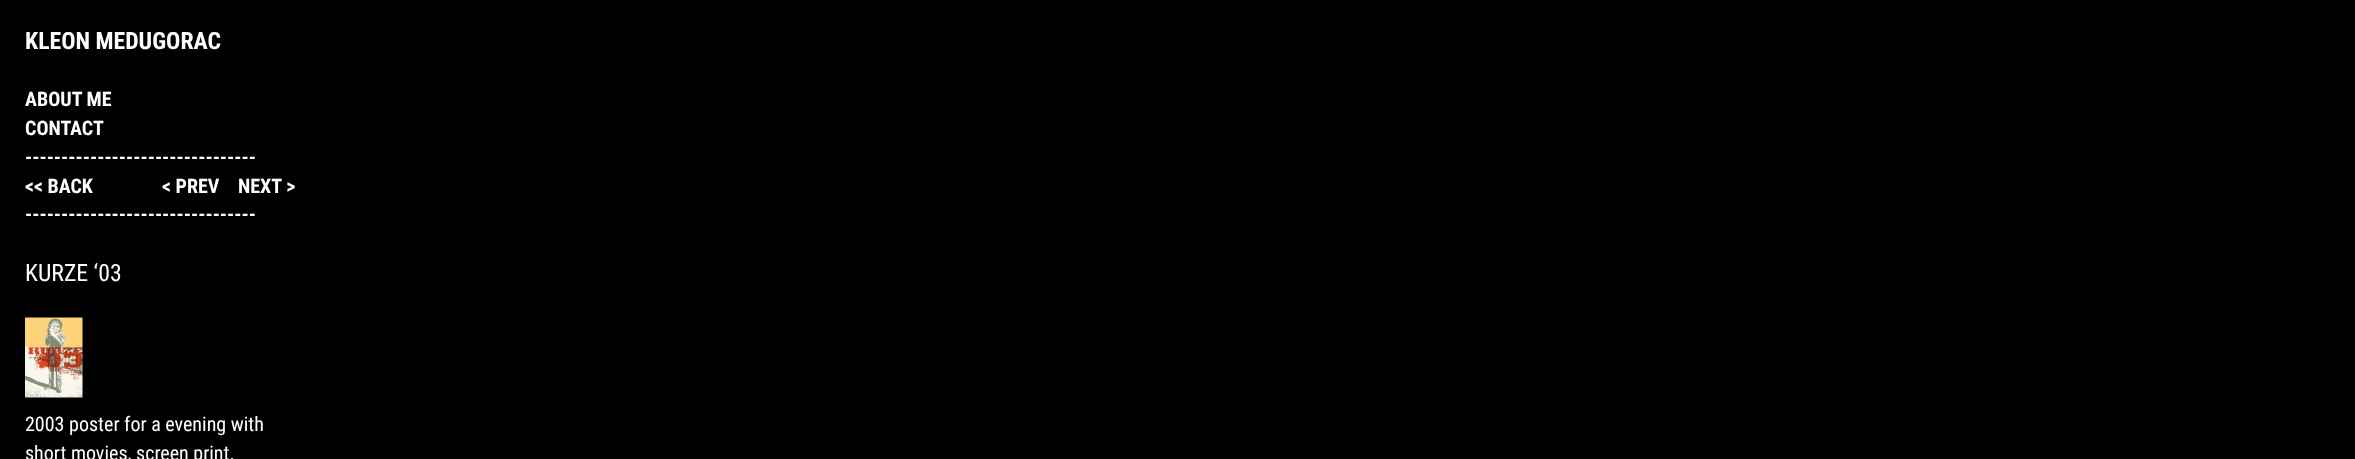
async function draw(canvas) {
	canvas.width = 2355;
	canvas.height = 459;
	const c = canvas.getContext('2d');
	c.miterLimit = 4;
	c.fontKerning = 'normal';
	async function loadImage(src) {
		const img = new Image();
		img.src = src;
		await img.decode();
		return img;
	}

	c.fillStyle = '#000';
	c.fillRect(0, 0, 2355, 459);
	c.font = 'bold 23.75px Roboto Condensed';
	c.fillStyle = '#fff';
	c.fillText('KLEON MEDUGORAC', 25, 49);
	c.font = 'bold 20px Roboto Condensed';
	for (const [text, x, y] of [
		['ABOUT ME', 25, 106],
		['CONTACT', 25, 135],
		['--------------------------------', 25, 164],
		['<< BACK', 25, 193],
		['< PREV', 162, 193],
		['NEXT >', 238, 193],
		['--------------------------------', 25, 221],
	]) {
		c.fillText(text, x, y);
	}
	c.font = '23.75px Roboto Condensed';
	c.fillText('KURZE ‘03', 25, 281);
	c.drawImage(await loadImage('img1.png'), 25, 317, 58, 81);
	c.font = '20px Roboto Condensed';
	c.fillText('2003 poster for a evening with', 25, 431);
	c.fillText('short movies, screen print.', 25, 460);
}

draw(document.querySelector('canvas'));
